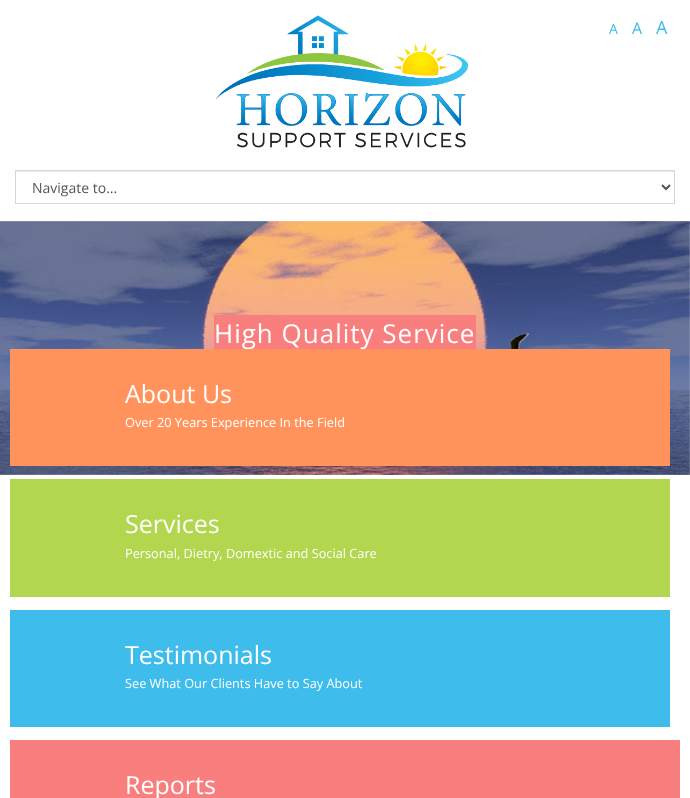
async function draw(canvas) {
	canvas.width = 690;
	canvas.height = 798;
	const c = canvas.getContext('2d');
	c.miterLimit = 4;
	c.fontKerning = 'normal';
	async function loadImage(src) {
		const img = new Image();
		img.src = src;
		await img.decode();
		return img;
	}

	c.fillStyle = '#fff';
	c.fillRect(0, 0, 690, 798);
	c.font = '14px Open Sans';
	c.fillStyle = '#3ebceb';
	c.fillText('A', 609, 34);
	c.font = '16px Open Sans';
	c.fillText('A', 632, 34);
	c.font = '18px Open Sans';
	c.fillText('A', 656, 34);
	c.drawImage(await loadImage('img1.png'), 215, 15, 254, 133);
	c.fillStyle = '#ececec';
	c.fillRect(16, 171, 658, 1);
	c.strokeStyle = '#d6d6d6';
	c.strokeRect(15.5, 170.5, 659, 33);
	c.beginPath();
	c.moveTo(662, 185);
	c.lineTo(666, 189);
	c.lineTo(670, 185);
	c.strokeStyle = '#555';
	c.lineWidth = 2;
	c.stroke();
	c.font = '14px Open Sans';
	c.fillStyle = '#555';
	c.fillText('Navigate to...', 32, 193);
	c.drawImage(await loadImage('img2.png'), 0, 221, 690, 254);
	c.fillStyle = '#f97f7e';
	c.fillRect(214, 315, 262, 34);
	c.letterSpacing = '1px';
	c.font = '26px Open Sans';
	c.fillStyle = '#fff';
	c.fillText('High Quality Service', 214, 343);
	c.fillStyle = '#ff935b';
	c.fillRect(10, 349, 660, 117);
	c.letterSpacing = '0px';
	c.font = '25px Open Sans';
	c.fillStyle = '#fff';
	c.fillText('About Us', 125, 403);
	c.font = '12.75px Open Sans';
	c.fillText('Over 20 Years Experience In the Field', 125, 427);
	c.fillStyle = '#b2d64d';
	c.fillRect(10, 479, 660, 118);
	c.font = '25px Open Sans';
	c.fillStyle = '#fff';
	c.fillText('Services', 125, 533);
	c.font = '12.75px Open Sans';
	c.fillText('Personal, Dietry, Domextic and Social Care', 125, 558);
	c.fillStyle = '#3ebceb';
	c.fillRect(10, 610, 660, 117);
	c.font = '25px Open Sans';
	c.fillStyle = '#fff';
	c.fillText('Testimonials', 125, 664);
	c.font = '12.75px Open Sans';
	c.fillText('See What Our Clients Have to Say About', 125, 688);
	c.fillStyle = '#f97f7e';
	c.fillRect(10, 740, 670, 58);
	c.font = '25px Open Sans';
	c.fillStyle = '#fff';
	c.fillText('Reports', 125, 794);
}

draw(document.querySelector('canvas'));
